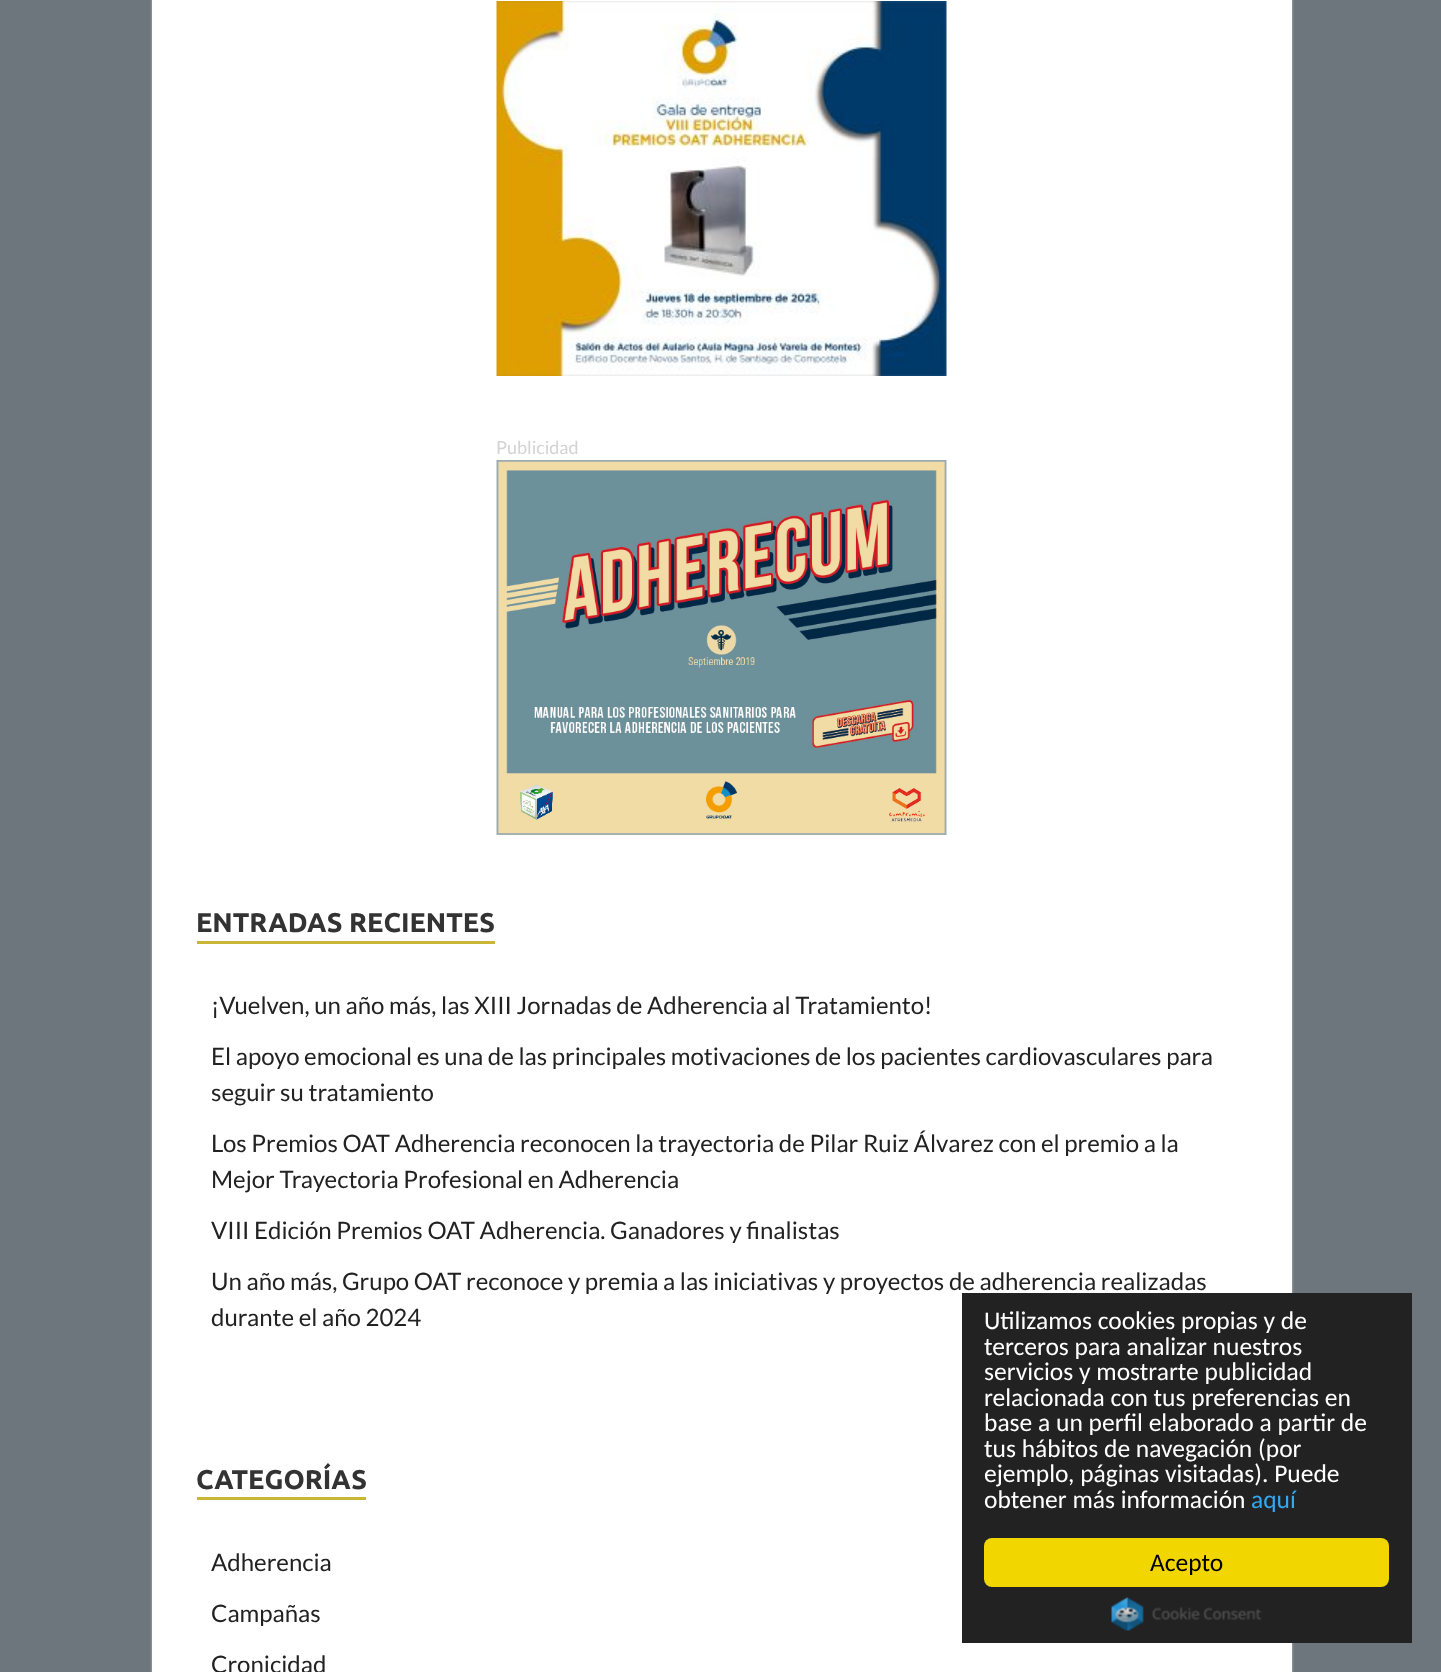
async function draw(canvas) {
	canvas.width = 1441;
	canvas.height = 1672;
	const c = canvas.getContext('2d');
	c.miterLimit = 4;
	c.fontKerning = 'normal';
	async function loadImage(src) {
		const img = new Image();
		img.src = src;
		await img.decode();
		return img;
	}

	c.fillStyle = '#6c767c';
	c.fillRect(0, 0, 1441, 1672);
	c.fillStyle = '#bbb';
	c.filter = 'blur(1.5px)';
	c.beginPath();
	c.rect(152, -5, 1140, 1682);
	c.fill();
	c.filter = 'none';
	c.fillStyle = '#fff';
	c.fillRect(152, 0, 1140, 1672);
	c.drawImage(await loadImage('img1.png'), 496, 1, 451, 375);
	c.font = '18px Lato';
	c.fillStyle = '#d3d3d3';
	c.fillText('Publicidad', 496, 454);
	c.drawImage(await loadImage('img2.png'), 496, 460, 451, 375);
	c.fillStyle = '#c9b636';
	c.fillRect(197, 941, 298, 3);
	c.font = 'bold 27px Ubuntu';
	c.fillStyle = '#333';
	c.fillText('ENTRADAS RECIENTES', 196, 932);
	c.font = '24px Lato';
	c.fillStyle = '#222';
	for (const [text, x, y] of [
		['¡Vuelven, un año más, las XIII Jornadas de Adherencia al Tratamiento!', 211, 1014],
		['El apoyo emocional es una de las principales motivaciones de los pacientes cardiovasculares para', 211, 1065],
		['seguir su tratamiento', 211, 1101],
		['Los Premios OAT Adherencia reconocen la trayectoria de Pilar Ruiz Álvarez con el premio a la', 211, 1152],
		['Mejor Trayectoria Profesional en Adherencia', 211, 1188],
		['VIII Edición Premios OAT Adherencia. Ganadores y finalistas', 211, 1239],
		['Un año más, Grupo OAT reconoce y premia a las iniciativas y proyectos de adherencia realizadas', 211, 1290],
		['durante el año 2024', 211, 1326],
	]) {
		c.fillText(text, x, y);
	}
	c.fillStyle = '#c9b636';
	c.fillRect(197, 1497, 169, 3);
	c.font = 'bold 27px Ubuntu';
	c.fillStyle = '#333';
	c.fillText('CATEGORÍAS', 196, 1489);
	c.font = '24px Lato';
	c.fillStyle = '#222';
	for (const [text, x, y] of [
		['Adherencia', 211, 1571],
		['Campañas', 211, 1622],
		['Cronicidad', 211, 1673],
	]) {
		c.fillText(text, x, y);
	}
	c.fillRect(962, 1293, 450, 350);
	c.font = '25.5px Carlito';
	c.fillStyle = '#fff';
	for (const [text, x, y] of [
		['Utilizamos cookies propias y de', 984, 1329],
		['terceros para analizar nuestros', 984, 1355],
		['servicios y mostrarte publicidad', 984, 1380],
		['relacionada con tus preferencias en', 984, 1406],
		['base a un perfil elaborado a partir de', 984, 1431],
		['tus hábitos de navegación (por', 984, 1457],
		['ejemplo, páginas visitadas). Puede', 984, 1482],
		['obtener más información', 984, 1508],
	]) {
		c.fillText(text, x, y);
	}
	c.fillStyle = '#31a8f0';
	c.fillText('aquí', 1251, 1508);
	c.fillStyle = '#f1d600';
	c.beginPath();
	c.roundRect(984, 1538, 405, 49, 8);
	c.fill();
	c.fillStyle = '#000';
	c.fillText('Acepto', 1150, 1571);
	c.drawImage(await loadImage('img3.png'), 1111, 1597, 151, 34);
}

draw(document.querySelector('canvas'));
